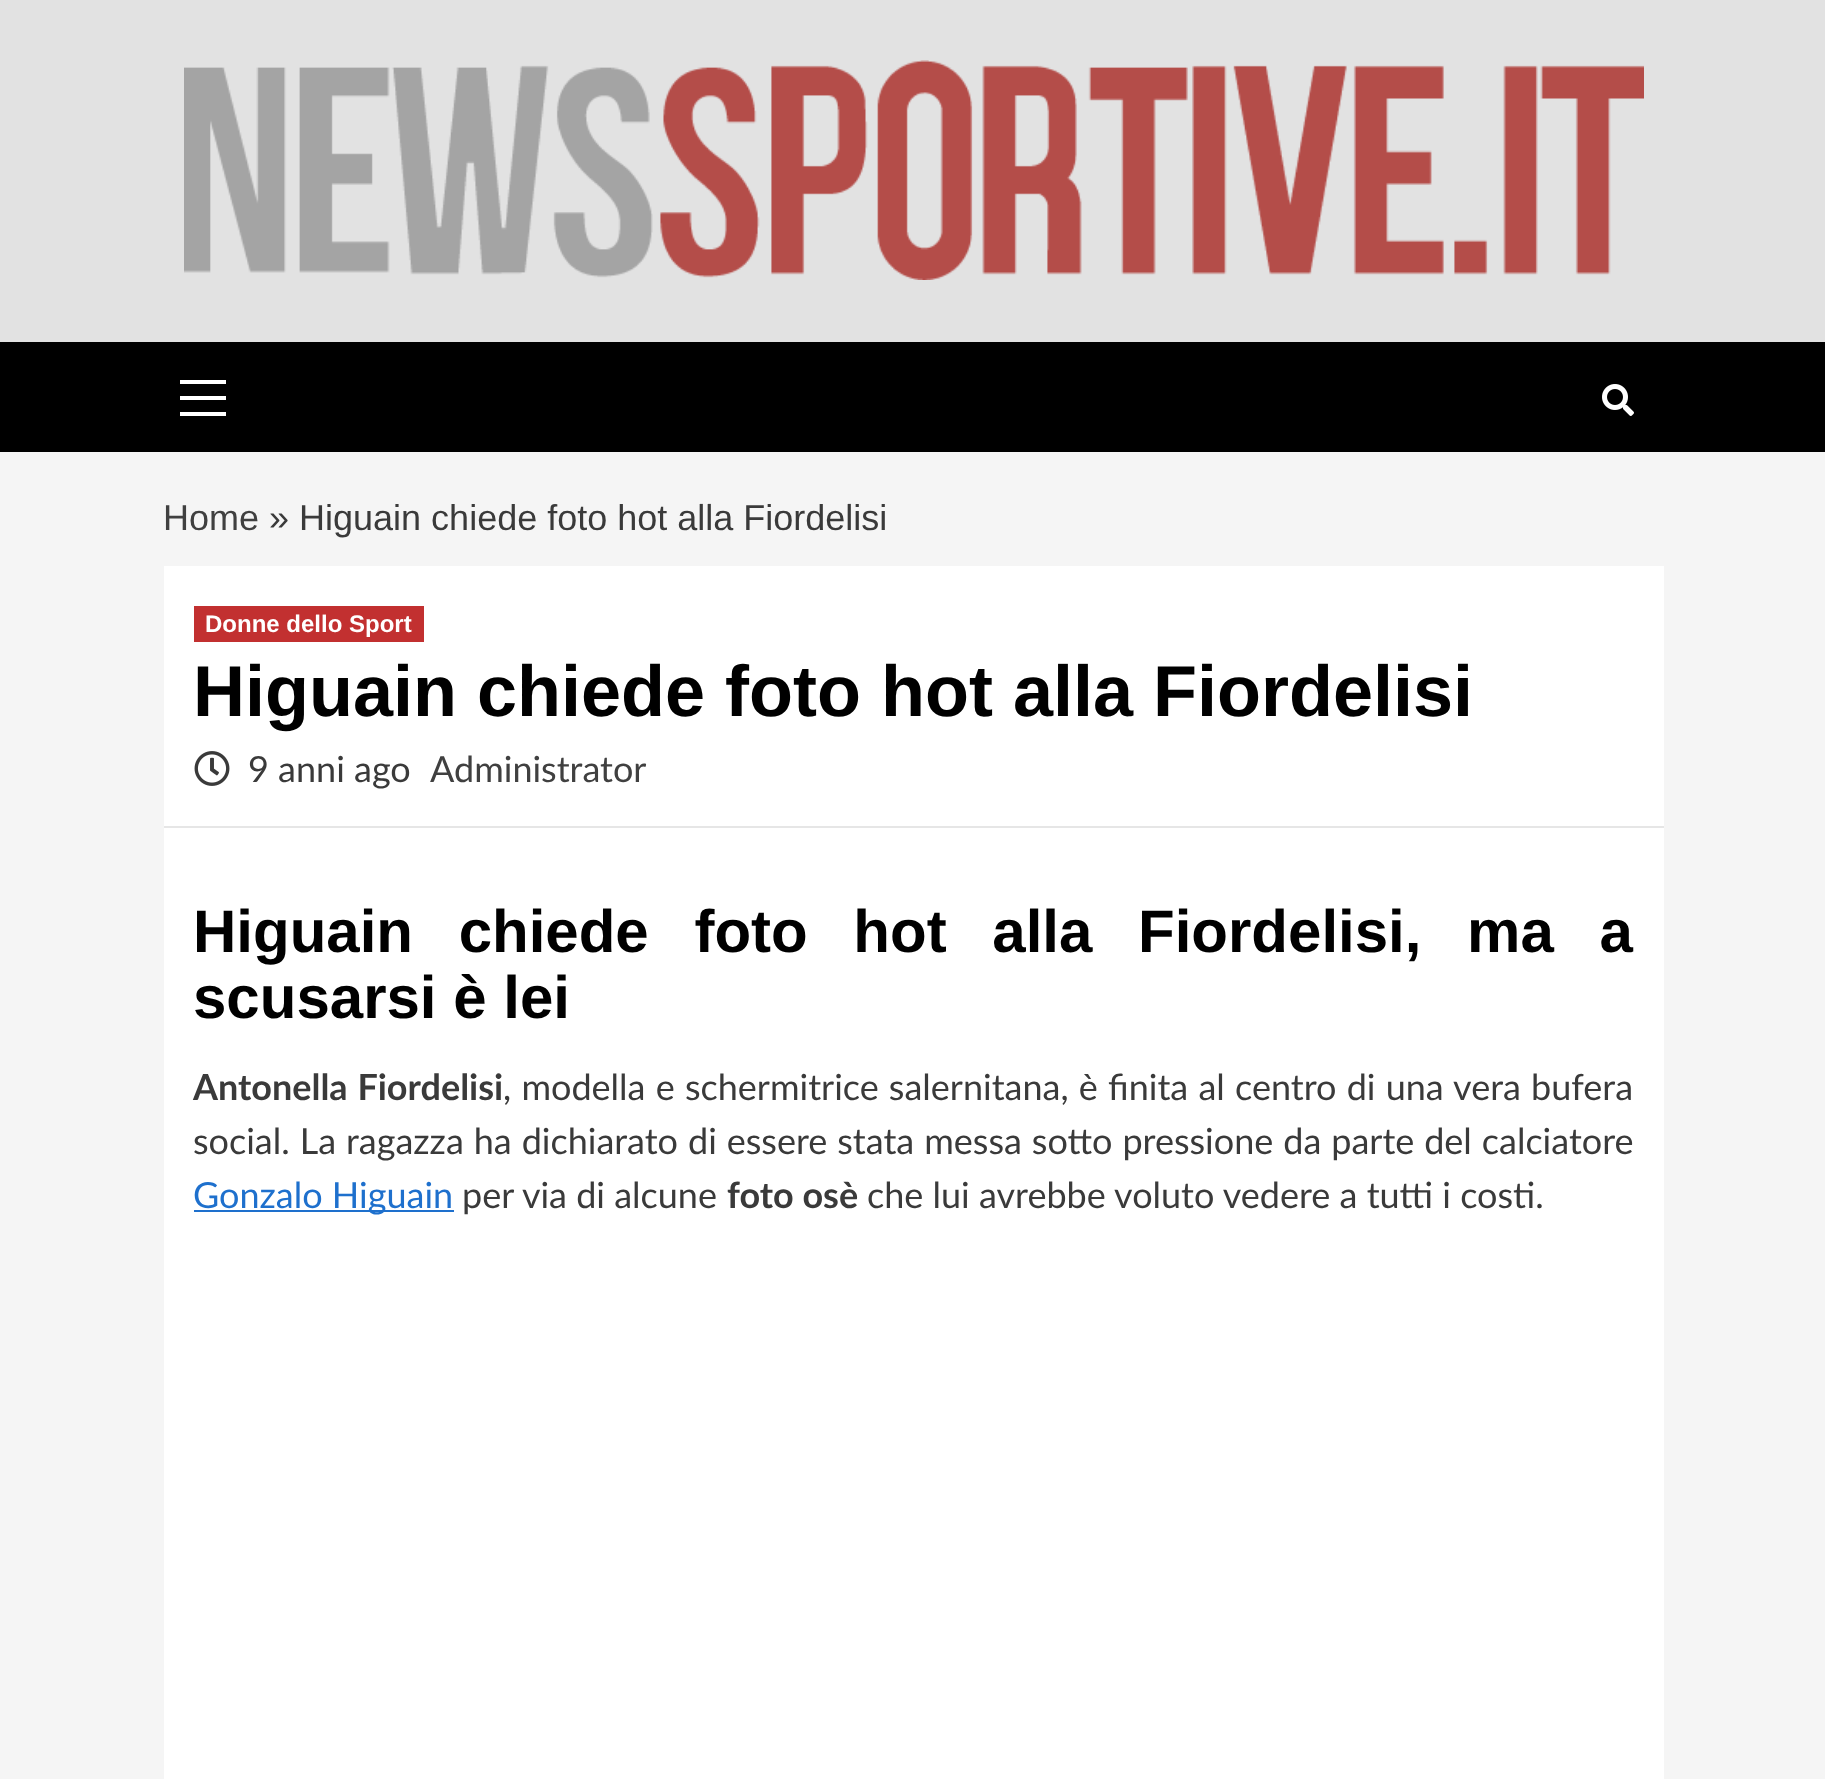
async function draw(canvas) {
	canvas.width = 1825;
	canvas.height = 1779;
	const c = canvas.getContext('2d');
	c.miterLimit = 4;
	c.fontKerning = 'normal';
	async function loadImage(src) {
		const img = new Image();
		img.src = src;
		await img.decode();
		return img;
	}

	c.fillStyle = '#f5f5f5';
	c.fillRect(0, 0, 1825, 1779);
	c.fillStyle = '#e2e2e2';
	c.fillRect(0, 0, 1825, 342);
	c.drawImage(await loadImage('img1.png'), 184, 60, 1460, 220);
	for (const [x, y, w, h, color] of [
		[0, 342, 1825, 110, '#000'],
		[180, 396, 46, 4, '#fff'],
		[180, 380, 46, 4, '#fff'],
		[180, 412, 46, 4, '#fff'],
	]) {
		c.fillStyle = color;
		c.fillRect(x, y, w, h);
	}
	c.drawImage(await loadImage('img2.png'), 1602, 384, 32, 32);
	c.font = '36px Liberation Sans';
	c.fillStyle = '#404040';
	c.fillText('Home', 163, 530);
	c.fillStyle = '#3a3a3a';
	c.fillText('» Higuain chiede foto hot alla Fiordelisi', 269, 530);
	for (const [x, y, w, h, color] of [
		[164, 566, 1500, 1213, '#fff'],
		[164, 826, 1500, 2, '#e6e6e6'],
		[194, 606, 230, 36, '#c23030'],
	]) {
		c.fillStyle = color;
		c.fillRect(x, y, w, h);
	}
	c.font = 'bold 24px Liberation Sans';
	c.fillStyle = '#fff';
	c.fillText('Donne dello Sport', 205, 632);
	c.font = 'bold 72px Liberation Sans';
	c.fillStyle = '#000';
	c.fillText('Higuain chiede foto hot alla Fiordelisi', 193, 716);
	c.drawImage(await loadImage('img3.png'), 194, 751, 36, 35);
	c.font = '36px Lato';
	c.fillStyle = '#3a3a3a';
	c.fillText('9 anni ago', 248, 782);
	c.fillStyle = '#404040';
	c.fillText('Administrator', 430, 782);
	c.wordSpacing = '29px';
	c.font = 'bold 60px Liberation Sans';
	c.fillStyle = '#000';
	c.fillText('Higuain chiede foto hot alla Fiordelisi, ma a', 193, 952);
	c.wordSpacing = '0px';
	c.fillText('scusarsi è lei', 193, 1018);
	c.wordSpacing = '1px';
	c.font = 'bold 36px Lato';
	c.fillStyle = '#3a3a3a';
	c.fillText('Antonella Fiordelisi', 193, 1100);
	c.font = '36px Lato';
	c.fillText(', modella e schermitrice salernitana, è finita al centro di una vera bufera', 503, 1100);
	c.wordSpacing = '0.75px';
	c.fillText('social. La ragazza ha dichiarato di essere stata messa sotto pressione da parte del calciatore', 193, 1154);
	c.fillStyle = '#1e70cd';
	c.fillRect(194, 1210, 260, 2);
	c.wordSpacing = '0px';
	c.fillText('Gonzalo Higuain', 193, 1208);
	c.fillStyle = '#3a3a3a';
	c.fillText('per via di alcune', 462, 1208);
	c.font = 'bold 36px Lato';
	c.fillText('foto osè', 727, 1208);
	c.font = '36px Lato';
	c.fillText('che lui avrebbe voluto vedere a tutti i costi.', 867, 1208);
}

draw(document.querySelector('canvas'));
